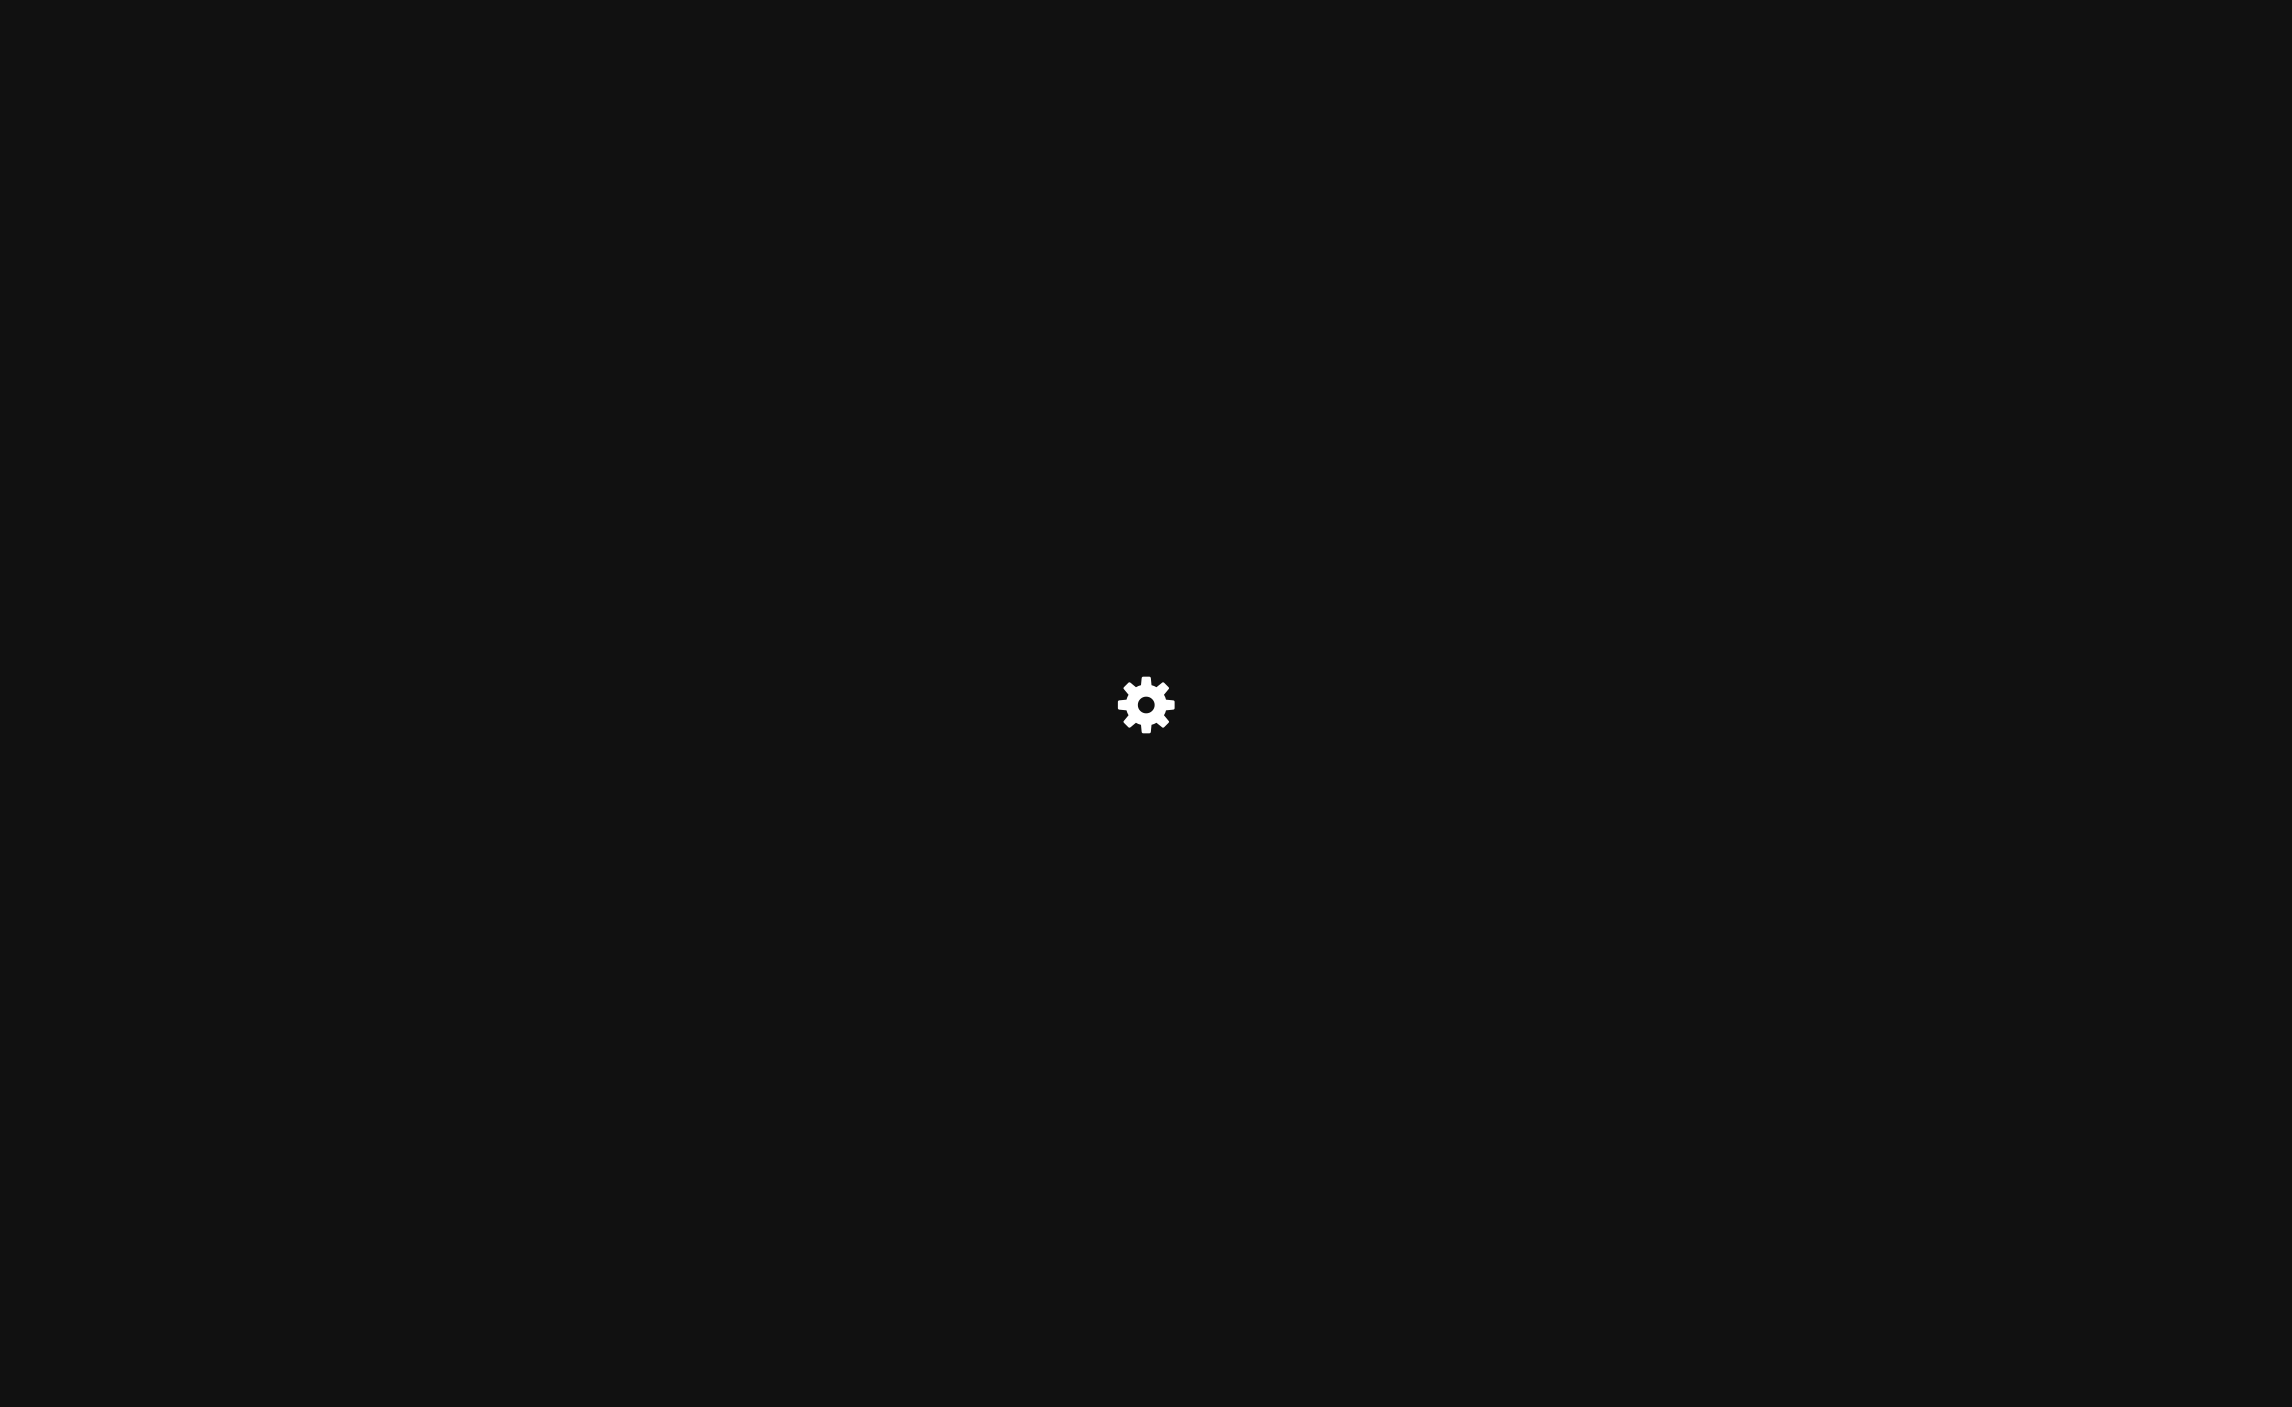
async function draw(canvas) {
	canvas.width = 2292;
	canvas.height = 1407;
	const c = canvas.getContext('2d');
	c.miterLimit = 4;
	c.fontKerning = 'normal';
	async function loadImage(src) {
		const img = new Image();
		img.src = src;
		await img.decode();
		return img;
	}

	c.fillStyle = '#111';
	c.fillRect(0, 0, 2292, 1407);
	c.drawImage(await loadImage('img1.png'), 1117, 676, 58, 58);
}

draw(document.querySelector('canvas'));
